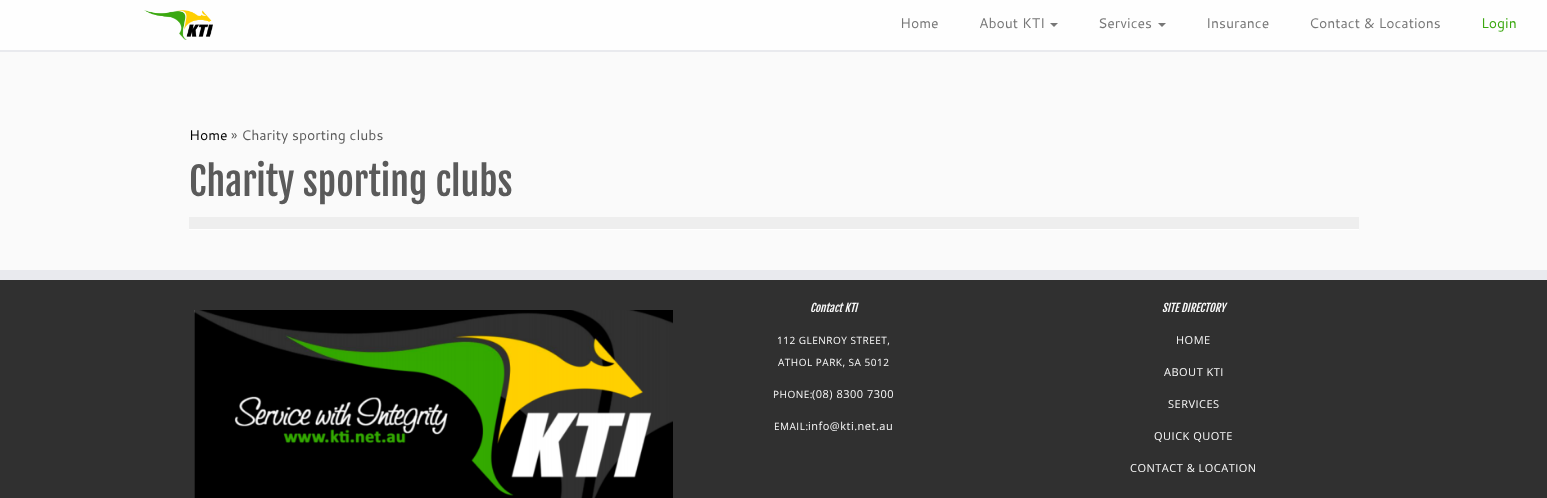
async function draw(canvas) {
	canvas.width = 1547;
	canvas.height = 498;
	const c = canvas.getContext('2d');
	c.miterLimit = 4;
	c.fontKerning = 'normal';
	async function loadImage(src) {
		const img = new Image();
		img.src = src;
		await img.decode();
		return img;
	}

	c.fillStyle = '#fafafa';
	c.fillRect(0, 0, 1547, 498);
	c.fillStyle = '#fefefe';
	c.fillRect(0, 0, 1547, 50);
	c.fillStyle = '#e9eaee';
	c.fillRect(0, 50, 1547, 2);
	c.drawImage(await loadImage('img1.png'), 144, 10, 69, 30);
	c.font = '14px Cantarell';
	c.fillStyle = '#777';
	c.fillText('Home', 900, 28);
	c.fillText('About KTI', 979, 28);
	c.beginPath();
	c.moveTo(1050, 23);
	c.lineTo(1058, 23);
	c.lineTo(1054, 27);
	c.closePath();
	c.fill();
	c.fillText('Services', 1098, 28);
	c.beginPath();
	c.moveTo(1158, 23);
	c.lineTo(1166, 23);
	c.lineTo(1162, 27);
	c.closePath();
	c.fill();
	c.fillText('Insurance', 1206, 28);
	c.fillText('Contact & Locations', 1309, 28);
	c.fillStyle = '#3ba810';
	c.fillText('Login', 1481, 28);
	c.fillStyle = '#000';
	c.fillText('Home', 189, 140);
	c.fillStyle = '#5a5a5a';
	c.fillText('» Charity sporting clubs', 231, 140);
	c.font = '38px Fjalla One';
	c.fillText('Charity sporting clubs', 189, 196);
	for (const [x, y, w, h, color] of [
		[189, 217, 1170, 12, '#eee'],
		[189, 229, 1170, 1, '#fff'],
		[0, 270, 1547, 10, '#e9eaee'],
		[0, 280, 1547, 218, '#303030'],
	]) {
		c.fillStyle = color;
		c.fillRect(x, y, w, h);
	}
	c.drawImage(await loadImage('img2.png'), 194, 310, 479, 188);
	c.font = 'italic 11px Fjalla One';
	c.fillStyle = '#fafafa';
	c.fillText('Contact KTI', 810, 312);
	c.letterSpacing = '0.5px';
	c.font = '10px Open Sans';
	for (const [text, x, y] of [
		['112 GLENROY STREET,', 777, 344],
		['ATHOL PARK, SA 5012', 778, 366],
		['PHONE:', 773, 398],
	]) {
		c.fillText(text, x, y);
	}
	c.font = '11px Open Sans';
	c.fillText('(08) 8300 7300', 812, 398);
	c.font = '10px Open Sans';
	c.fillText('EMAIL:', 774, 430);
	c.font = '11px Open Sans';
	c.fillText('info@kti.net.au', 808, 430);
	c.letterSpacing = '0px';
	c.font = 'italic 11px Fjalla One';
	c.fillText('SITE DIRECTORY', 1162, 312);
	c.letterSpacing = '0.5px';
	c.font = '11px Open Sans';
	for (const [text, x, y] of [
		['HOME', 1176, 344],
		['ABOUT KTI', 1164, 376],
		['SERVICES', 1168, 408],
		['QUICK QUOTE', 1154, 440],
		['CONTACT & LOCATION', 1130, 472],
	]) {
		c.fillText(text, x, y);
	}
}

draw(document.querySelector('canvas'));
